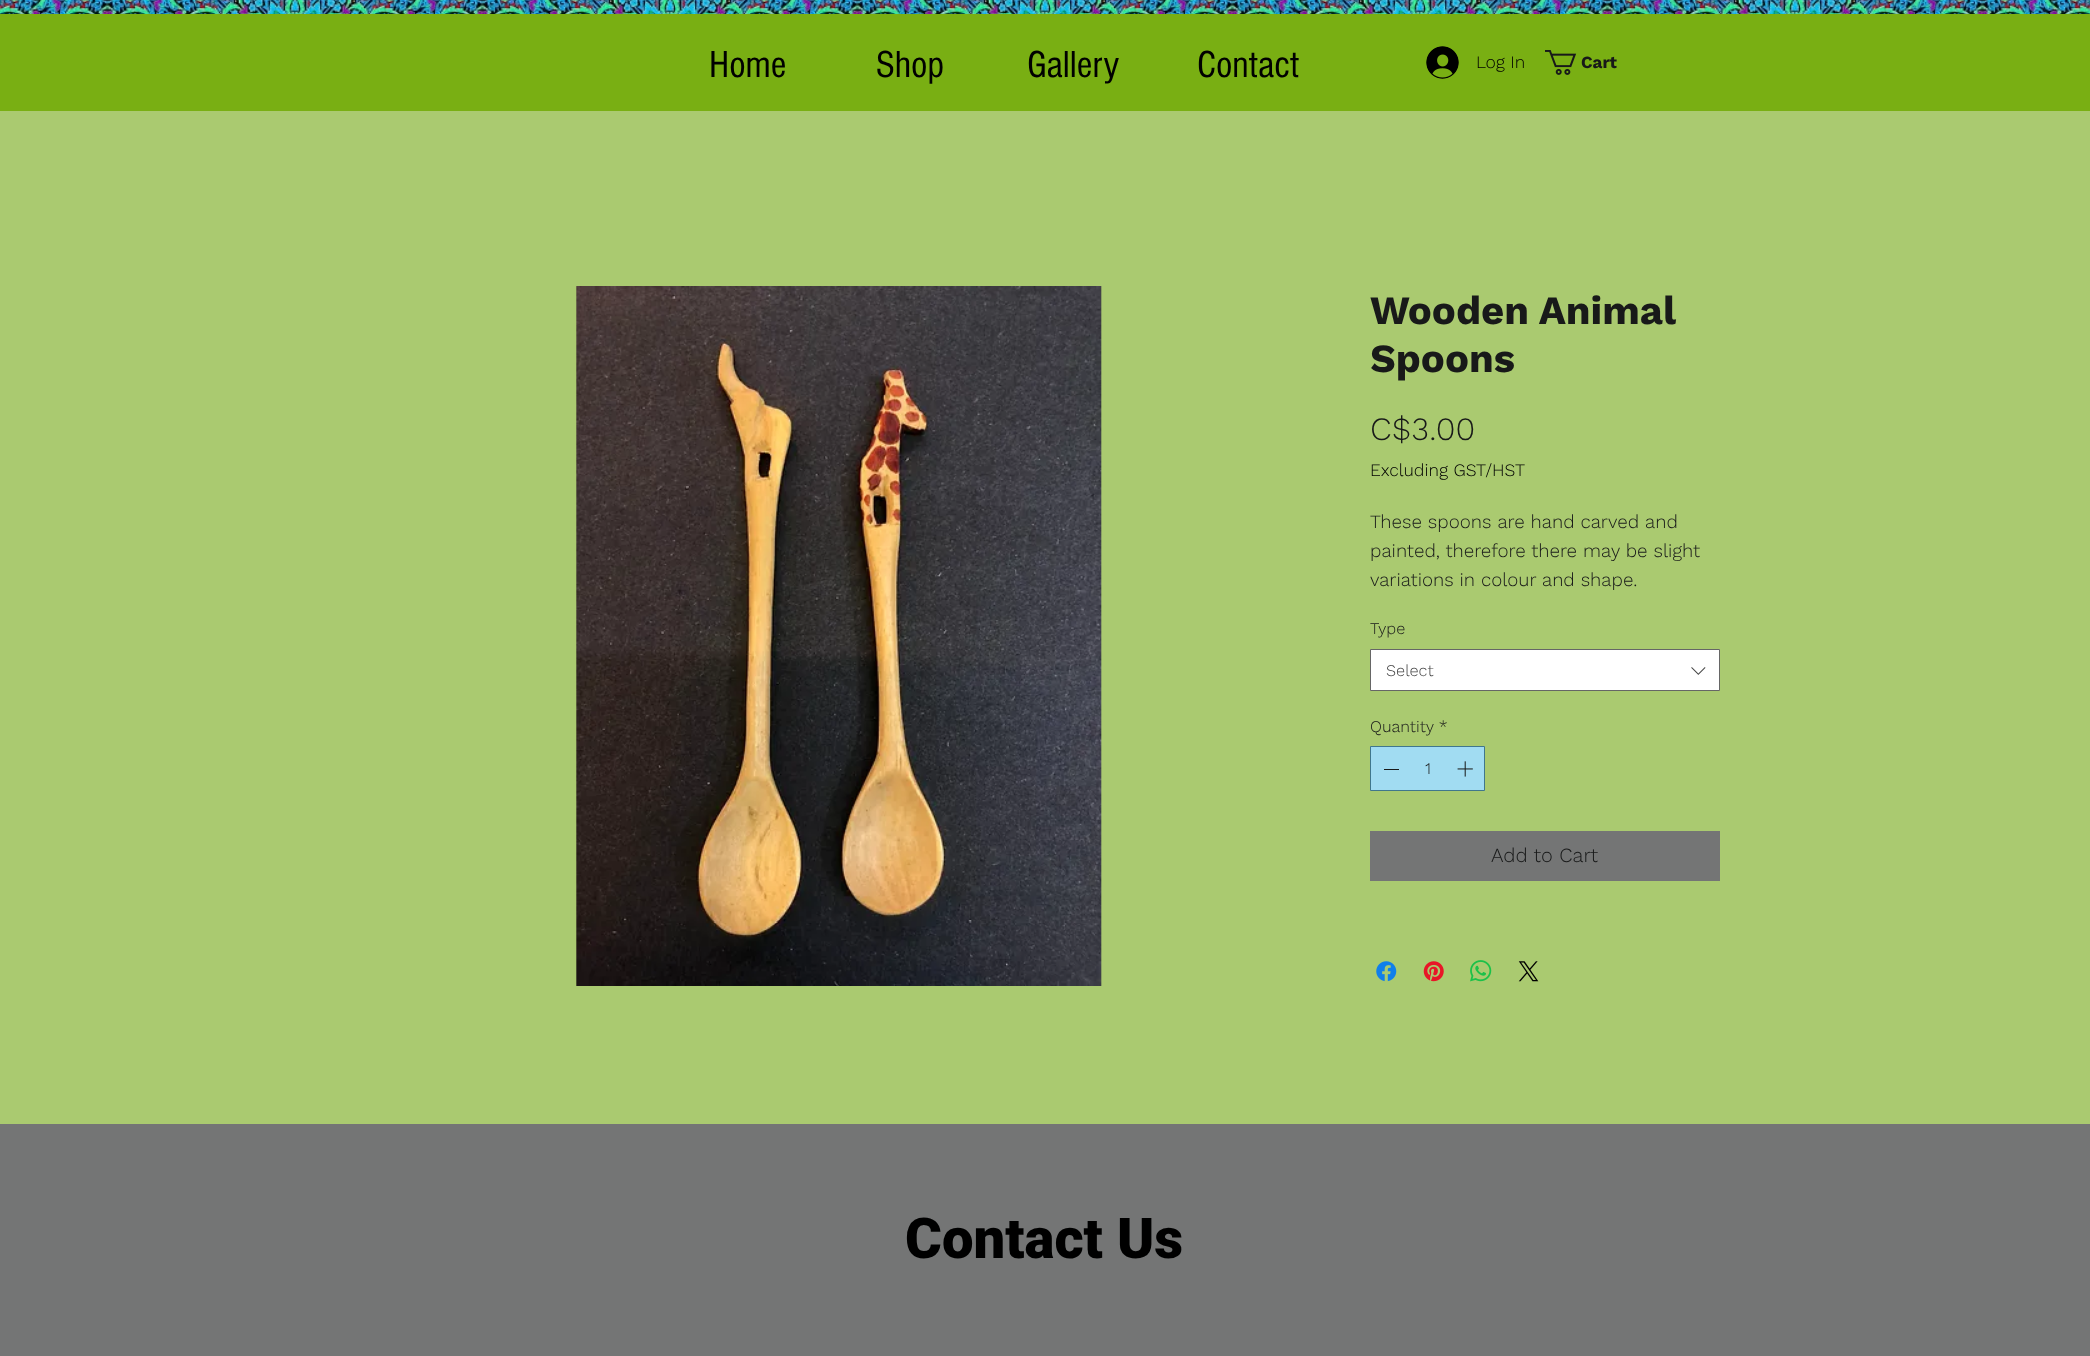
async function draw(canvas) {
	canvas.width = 2090;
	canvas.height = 1356;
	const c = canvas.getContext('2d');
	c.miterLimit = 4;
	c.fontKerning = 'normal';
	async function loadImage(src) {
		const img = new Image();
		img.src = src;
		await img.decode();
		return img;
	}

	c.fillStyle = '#fff';
	c.fillRect(0, 0, 2090, 1356);
	c.drawImage(await loadImage('img1.png'), 0, 0, 2090, 14);
	c.fillStyle = '#79af13';
	c.fillRect(0, 14, 2090, 97);
	c.font = '39px "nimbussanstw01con"';
	c.fillStyle = '#000';
	for (const [text, x, y] of [
		['Home', 709, 77],
		['Shop', 876, 77],
		['Gallery', 1027, 77],
		['Contact', 1197, 77],
	]) {
		c.fillText(text, x, y);
	}
	c.drawImage(await loadImage('img2.png'), 1426, 46, 33, 33);
	c.font = '300 17.5px Work Sans';
	c.fillText('Log In', 1476, 68);
	c.drawImage(await loadImage('img3.png'), 1545, 50, 32, 25);
	c.font = 'bold 17px Work Sans';
	c.fillStyle = '#181919';
	c.fillText('Cart', 1581, 68);
	c.fillStyle = '#aaca70';
	c.fillRect(0, 111, 2090, 1013);
	c.drawImage(await loadImage('img4.png'), 576, 286, 526, 700);
	c.wordSpacing = '-1px';
	c.font = 'bold 40px Work Sans';
	c.fillStyle = '#181919';
	c.fillText('Wooden Animal', 1370, 324);
	c.wordSpacing = '0px';
	c.fillText('Spoons', 1370, 372);
	c.font = '300 32.5px Work Sans';
	c.fillText('C$3.00', 1370, 440);
	c.font = '300 17.5px Work Sans';
	c.fillStyle = '#000';
	c.fillText('Excluding GST/HST', 1370, 476);
	c.font = '300 18.75px Work Sans';
	c.fillStyle = '#181919';
	for (const [text, x, y] of [
		['These spoons are hand carved and', 1370, 528],
		['painted, therefore there may be slight', 1370, 557],
		['variations in colour and shape.', 1370, 586],
	]) {
		c.fillText(text, x, y);
	}
	c.font = '300 16.25px Work Sans';
	c.fillText('Type', 1370, 634);
	c.fillStyle = '#fff';
	c.beginPath();
	c.rect(1370.5, 649.5, 349, 41);
	c.fill();
	c.strokeStyle = '#666';
	c.stroke();
	c.fillStyle = '#444';
	c.fillText('Select', 1386, 676);
	c.drawImage(await loadImage('img5.png'), 1691, 667, 15, 8);
	c.fillStyle = '#181919';
	c.fillText('Quantity *', 1370, 732);
	c.fillStyle = '#a1dcf2';
	c.beginPath();
	c.rect(1370.5, 746.5, 114, 44);
	c.fill();
	c.strokeStyle = '#40778c';
	c.stroke();
	c.fillStyle = '#181919';
	c.fillRect(1384, 769, 15, 1);
	c.fillText('1', 1425, 774);
	c.drawImage(await loadImage('img6.png'), 1457, 761, 16, 16);
	c.fillStyle = '#747575';
	c.fillRect(1370, 831, 350, 50);
	c.font = '300 20px Work Sans';
	c.fillStyle = '#181919';
	c.fillText('Add to Cart', 1491, 862);
	c.drawImage(await loadImage('img7.png'), 1376, 961, 21, 21);
	c.drawImage(await loadImage('img8.png'), 1423, 961, 21, 21);
	c.drawImage(await loadImage('img9.png'), 1470, 960, 22, 22);
	c.drawImage(await loadImage('img10.png'), 1518, 961, 21, 21);
	c.fillStyle = '#747575';
	c.fillRect(0, 1124, 2090, 232);
	c.font = '900 56.25px Roboto';
	c.fillStyle = '#000';
	c.fillText('Contact Us', 905, 1258);
}

draw(document.querySelector('canvas'));
